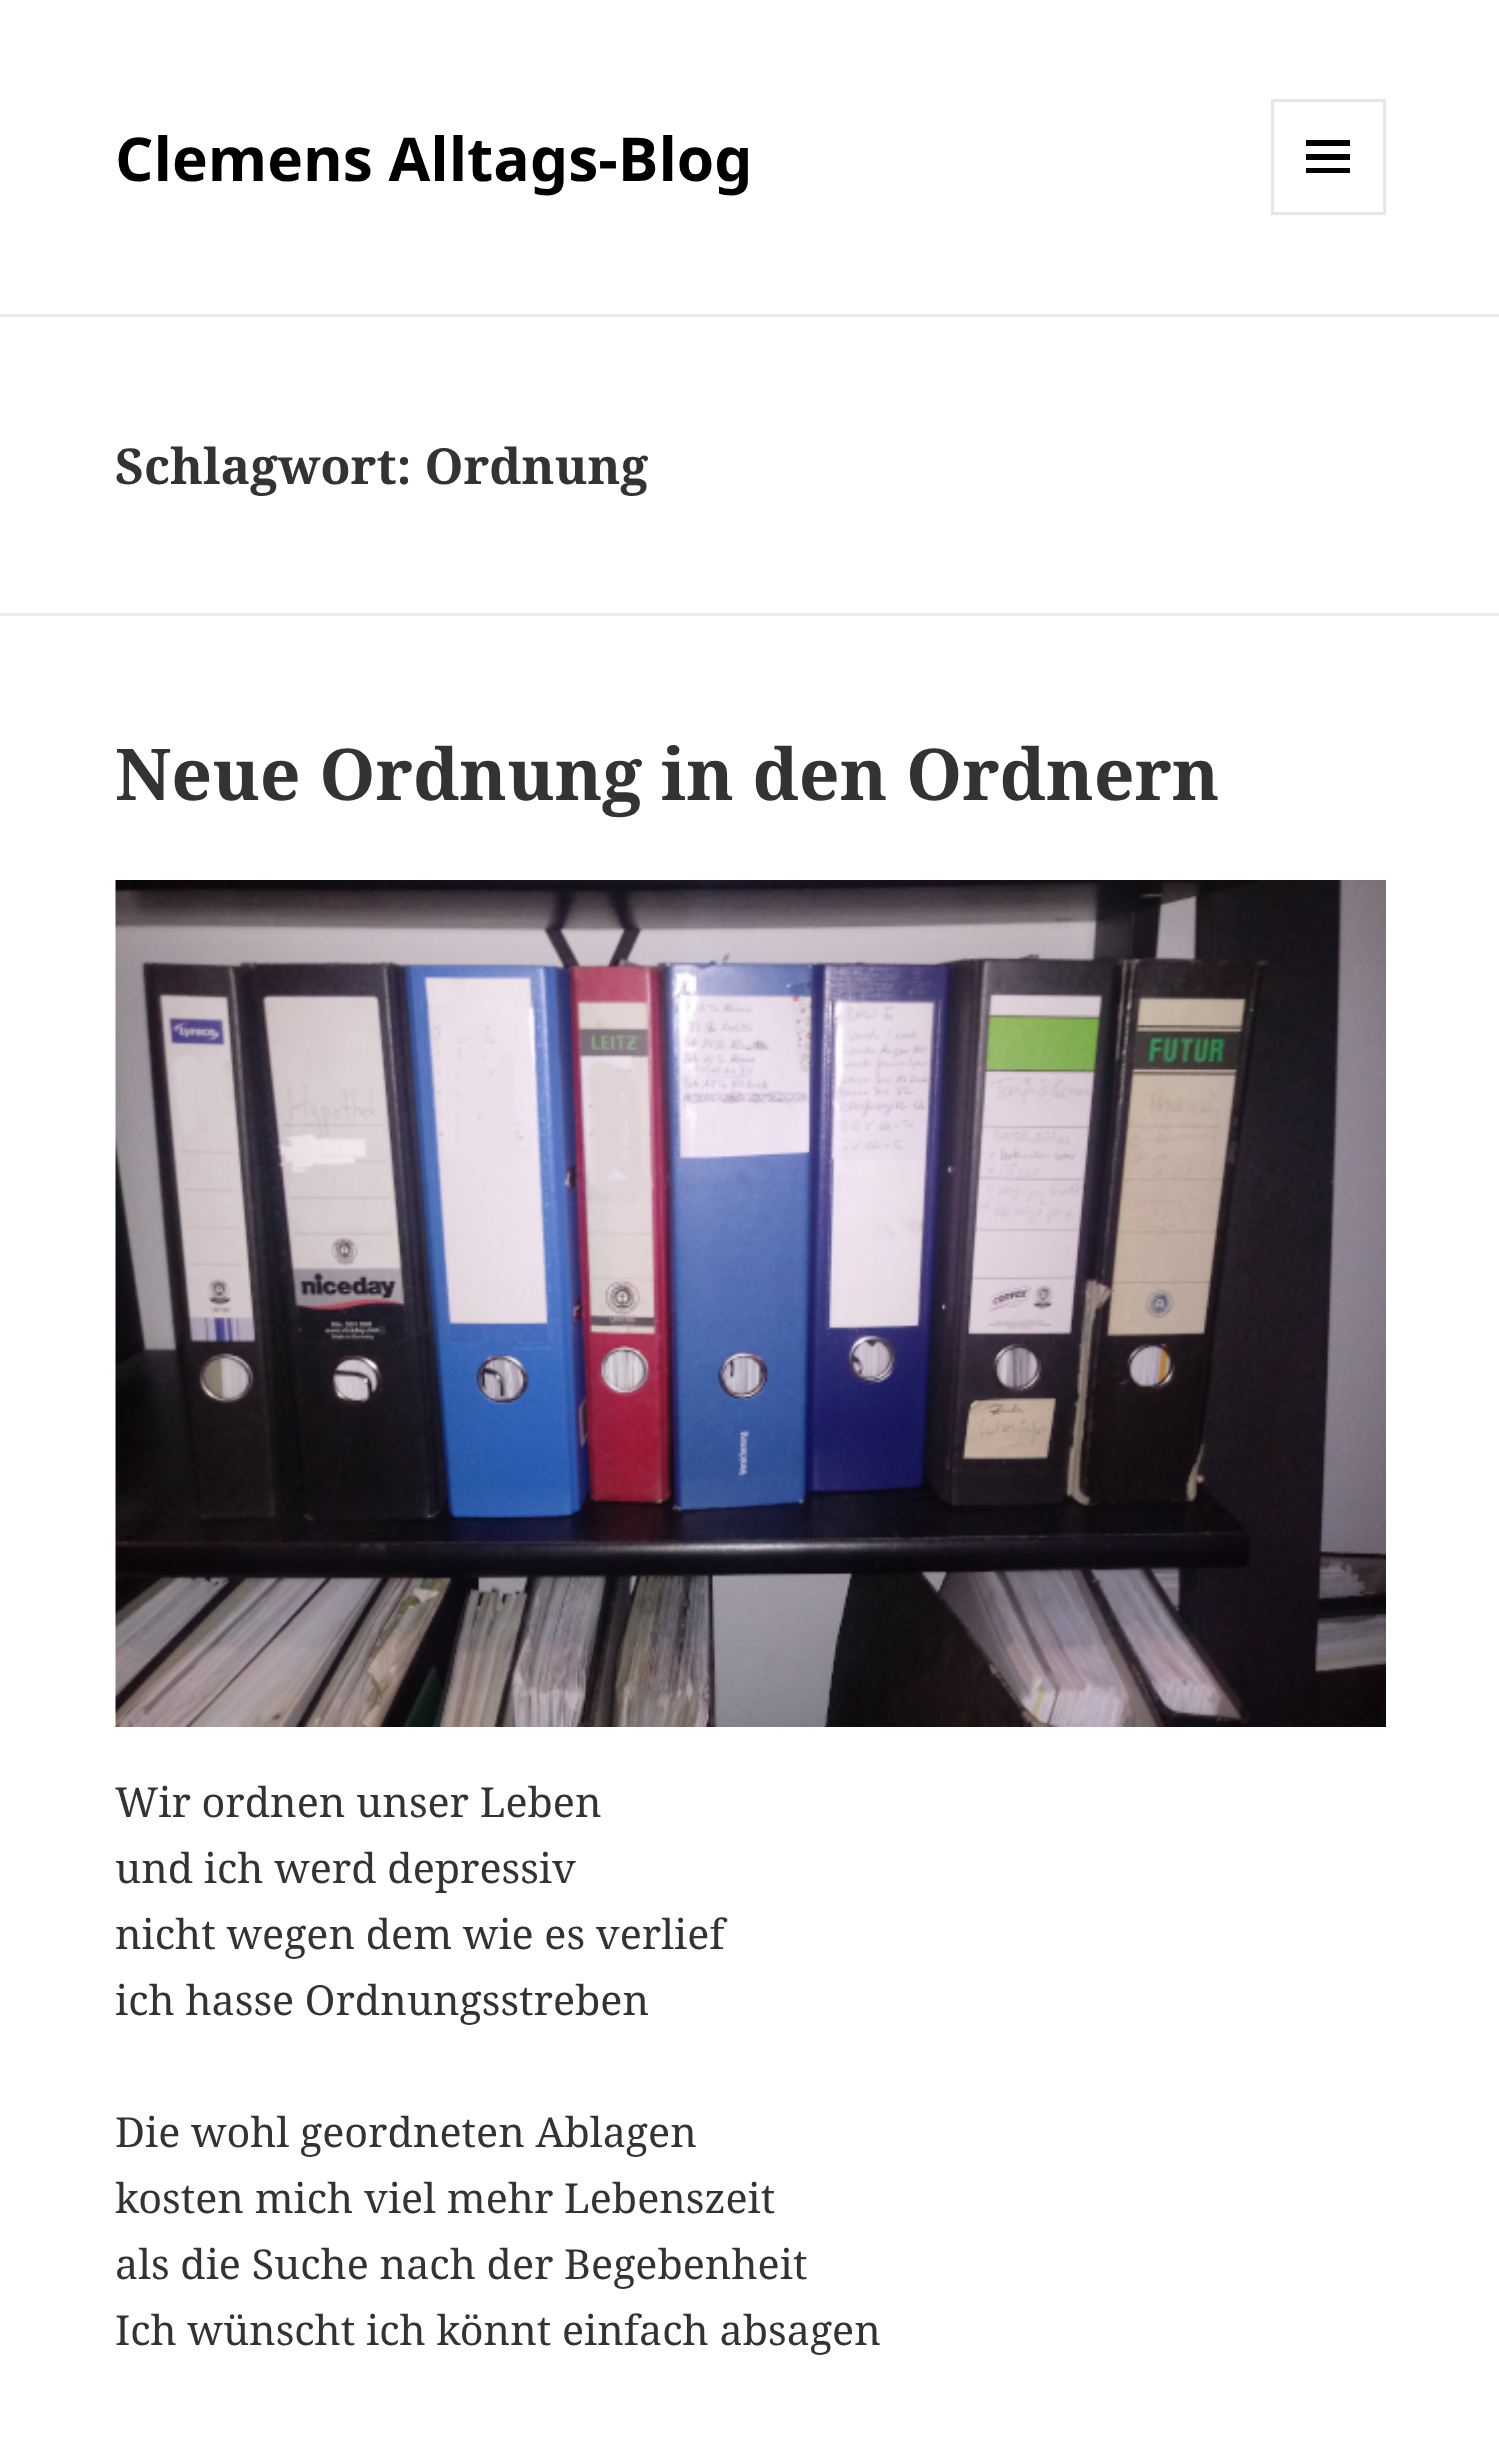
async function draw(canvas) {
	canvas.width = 1499;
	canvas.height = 2442;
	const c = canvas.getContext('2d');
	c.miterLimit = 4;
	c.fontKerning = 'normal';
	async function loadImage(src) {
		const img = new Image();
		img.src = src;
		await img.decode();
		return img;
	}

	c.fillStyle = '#fff';
	c.fillRect(0, 0, 1499, 2442);
	c.fillStyle = '#ebebeb';
	c.fillRect(0, 314, 1499, 3);
	c.font = 'bold 60.5px Noto Sans';
	c.fillStyle = '#000';
	c.fillText('Clemens Alltags-Blog', 115, 181);
	c.strokeStyle = '#e6e6e6';
	c.lineWidth = 3;
	c.strokeRect(1272.5, 100.5, 112, 113);
	c.beginPath();
	c.moveTo(1306, 173);
	c.lineTo(1306, 168);
	c.lineTo(1350, 168);
	c.lineTo(1350, 173);
	c.closePath();
	c.moveTo(1306, 140);
	c.lineTo(1350, 140);
	c.lineTo(1350, 146);
	c.lineTo(1306, 146);
	c.closePath();
	c.moveTo(1306, 160);
	c.lineTo(1306, 154);
	c.lineTo(1350, 154);
	c.lineTo(1350, 160);
	c.closePath();
	c.fill();
	c.fillStyle = '#ebebeb';
	c.fillRect(0, 613, 1499, 3);
	c.font = 'bold 49.5px Noto Serif';
	c.fillStyle = '#333';
	c.fillText('Schlagwort: Ordnung', 115, 484);
	c.font = 'bold 71.5px Noto Serif';
	c.fillText('Neue Ordnung in den Ordnern', 115, 800);
	c.drawImage(await loadImage('img1.png'), 115, 880, 1271, 847);
	c.font = '41.25px Noto Serif';
	for (const [text, x, y] of [
		['Wir ordnen unser Leben', 115, 1817],
		['und ich werd depressiv', 115, 1883],
		['nicht wegen dem wie es verlief', 115, 1949],
		['ich hasse Ordnungsstreben', 115, 2015],
		['Die wohl geordneten Ablagen', 115, 2147],
		['kosten mich viel mehr Lebenszeit', 115, 2213],
		['als die Suche nach der Begebenheit', 115, 2279],
		['Ich wünscht ich könnt einfach absagen', 115, 2345],
	]) {
		c.fillText(text, x, y);
	}
}

draw(document.querySelector('canvas'));
